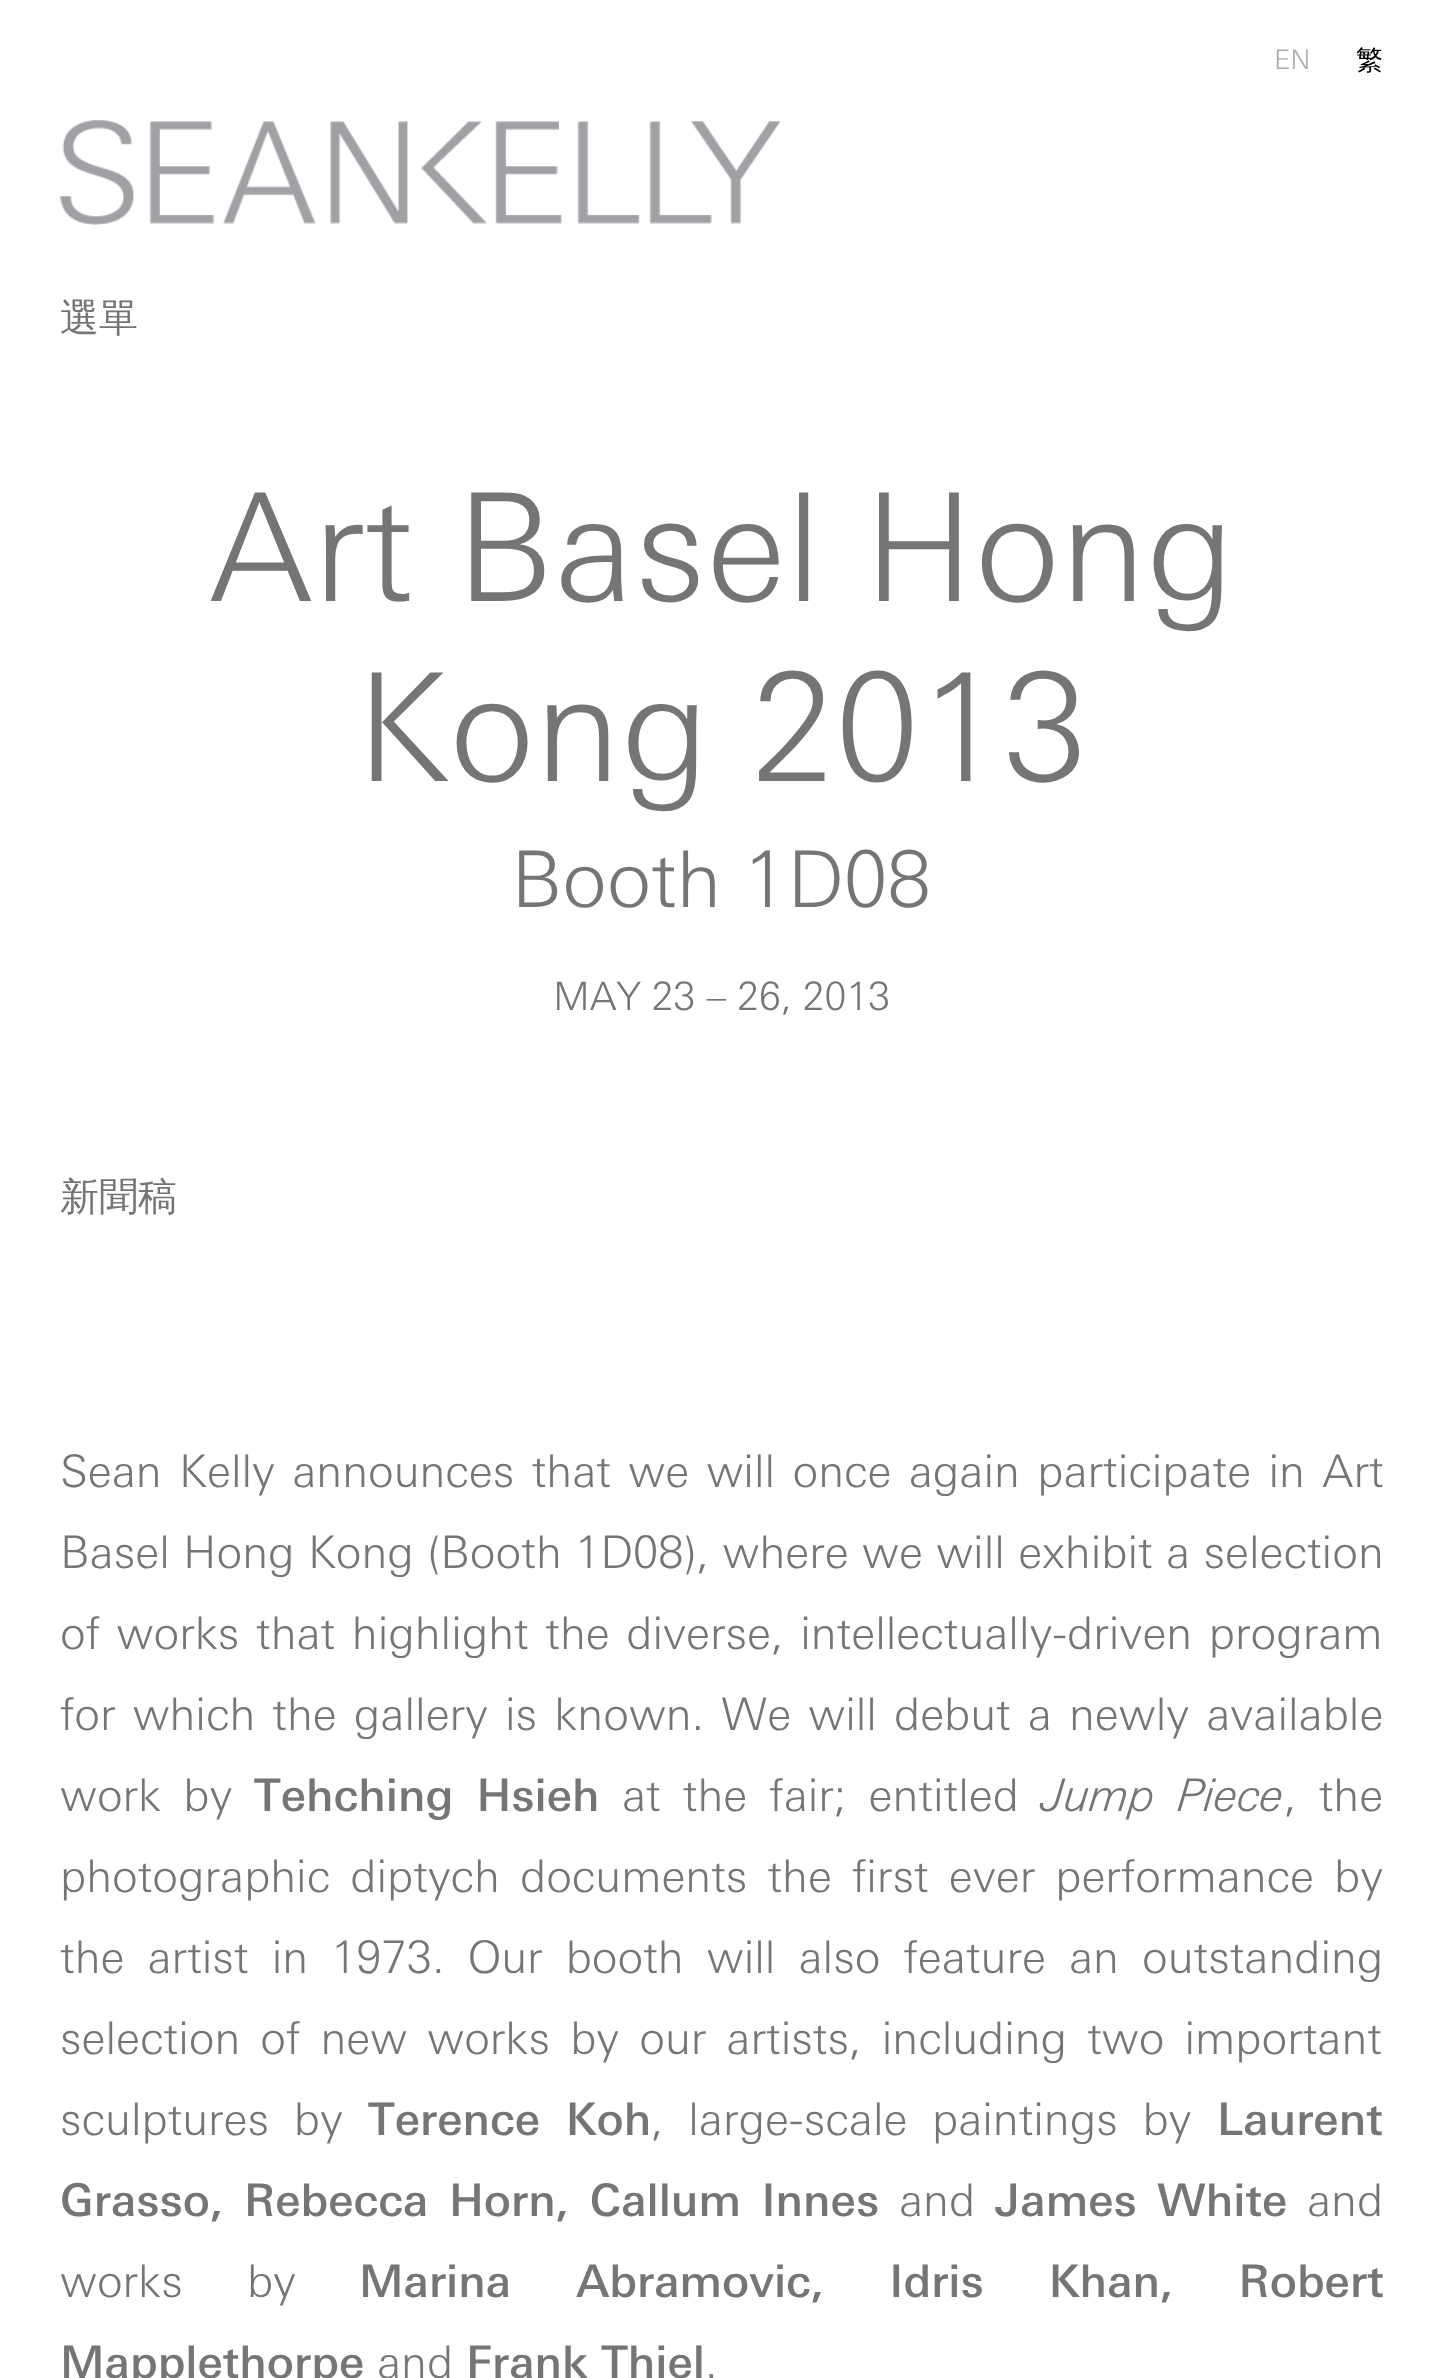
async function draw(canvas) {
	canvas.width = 1443;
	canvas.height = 2378;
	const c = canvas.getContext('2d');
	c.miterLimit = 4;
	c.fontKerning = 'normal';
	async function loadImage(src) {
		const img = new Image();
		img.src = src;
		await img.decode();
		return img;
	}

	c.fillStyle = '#fff';
	c.fillRect(0, 0, 1443, 2378);
	c.font = '300 27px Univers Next';
	c.fillStyle = '#aaa';
	c.fillText('EN', 1274, 69);
	c.font = '500 27px WenQuanYi Zen Hei';
	c.fillStyle = '#000';
	c.fillText('繁', 1356, 69);
	c.drawImage(await loadImage('img1.png'), 60, 120, 720, 105);
	c.font = '500 39px WenQuanYi Zen Hei';
	c.fillStyle = '#757575';
	c.fillText('選單', 60, 331);
	c.font = '300 150px Univers Next';
	c.fillText('Art Basel Hong', 209, 601);
	c.fillText('Kong 2013', 356, 781);
	c.font = '300 78px Univers Next';
	c.fillText('Booth 1D08', 511, 907);
	c.font = '300 39px Univers Next';
	c.fillText('MAY 23 – 26, 2013', 553, 1010);
	c.font = '500 39px WenQuanYi Zen Hei';
	c.fillText('新聞稿', 60, 1210);
	c.wordSpacing = '4.75px';
	c.font = '300 45px Univers Next';
	c.fillText('Sean Kelly announces that we will once again participate in Art', 60, 1487);
	c.wordSpacing = '0.75px';
	c.fillText('Basel Hong Kong (Booth 1D08), where we will exhibit a selection', 60, 1568);
	c.wordSpacing = '4px';
	c.fillText('of works that highlight the diverse, intellectually-driven program', 60, 1649);
	c.wordSpacing = '4.5px';
	c.fillText('for which the gallery is known. We will debut a newly available', 60, 1730);
	c.wordSpacing = '9.5px';
	c.fillText('work by', 60, 1811);
	c.font = '500 45px Univers Next';
	c.fillText('Tehching Hsieh', 254, 1811);
	c.font = '300 45px Univers Next';
	c.fillText('at the fair; entitled', 622, 1811);
	c.font = 'italic 300 45px Univers Next';
	c.fillText('Jump Piece', 1041, 1811);
	c.font = '300 45px Univers Next';
	c.fillText(', the', 1284, 1811);
	c.wordSpacing = '7.5px';
	c.fillText('photographic diptych documents the first ever performance by', 60, 1892);
	c.wordSpacing = '10.5px';
	c.fillText('the artist in 1973. Our booth will also feature an outstanding', 60, 1973);
	c.wordSpacing = '7.5px';
	c.fillText('selection of new works by our artists, including two important', 60, 2054);
	c.wordSpacing = '12px';
	c.fillText('sculptures by', 60, 2135);
	c.font = '500 45px Univers Next';
	c.fillText('Terence Koh', 368, 2135);
	c.font = '300 45px Univers Next';
	c.fillText(', large-scale paintings by', 651, 2135);
	c.wordSpacing = '0px';
	c.font = '500 45px Univers Next';
	c.fillText('Laurent', 1217, 2135);
	c.wordSpacing = '7px';
	c.fillText('Grasso, Rebecca Horn, Callum Innes', 60, 2216);
	c.wordSpacing = '0px';
	c.font = '300 45px Univers Next';
	c.fillText('and', 899, 2216);
	c.wordSpacing = '7px';
	c.font = '500 45px Univers Next';
	c.fillText('James White', 995, 2216);
	c.wordSpacing = '0px';
	c.font = '300 45px Univers Next';
	c.fillText('and', 1307, 2216);
	c.wordSpacing = '51.5px';
	c.fillText('works by', 60, 2297);
	c.font = '500 45px Univers Next';
	c.fillText('Marina Abramovic, Idris Khan, Robert', 359, 2297);
	c.wordSpacing = '0px';
	c.fillText('Mapplethorpe', 60, 2378);
	c.font = '300 45px Univers Next';
	c.fillText('and', 377, 2378);
	c.font = '500 45px Univers Next';
	c.fillText('Frank Thiel', 466, 2378);
	c.font = '300 45px Univers Next';
	c.fillText('.', 705, 2378);
}

draw(document.querySelector('canvas'));
